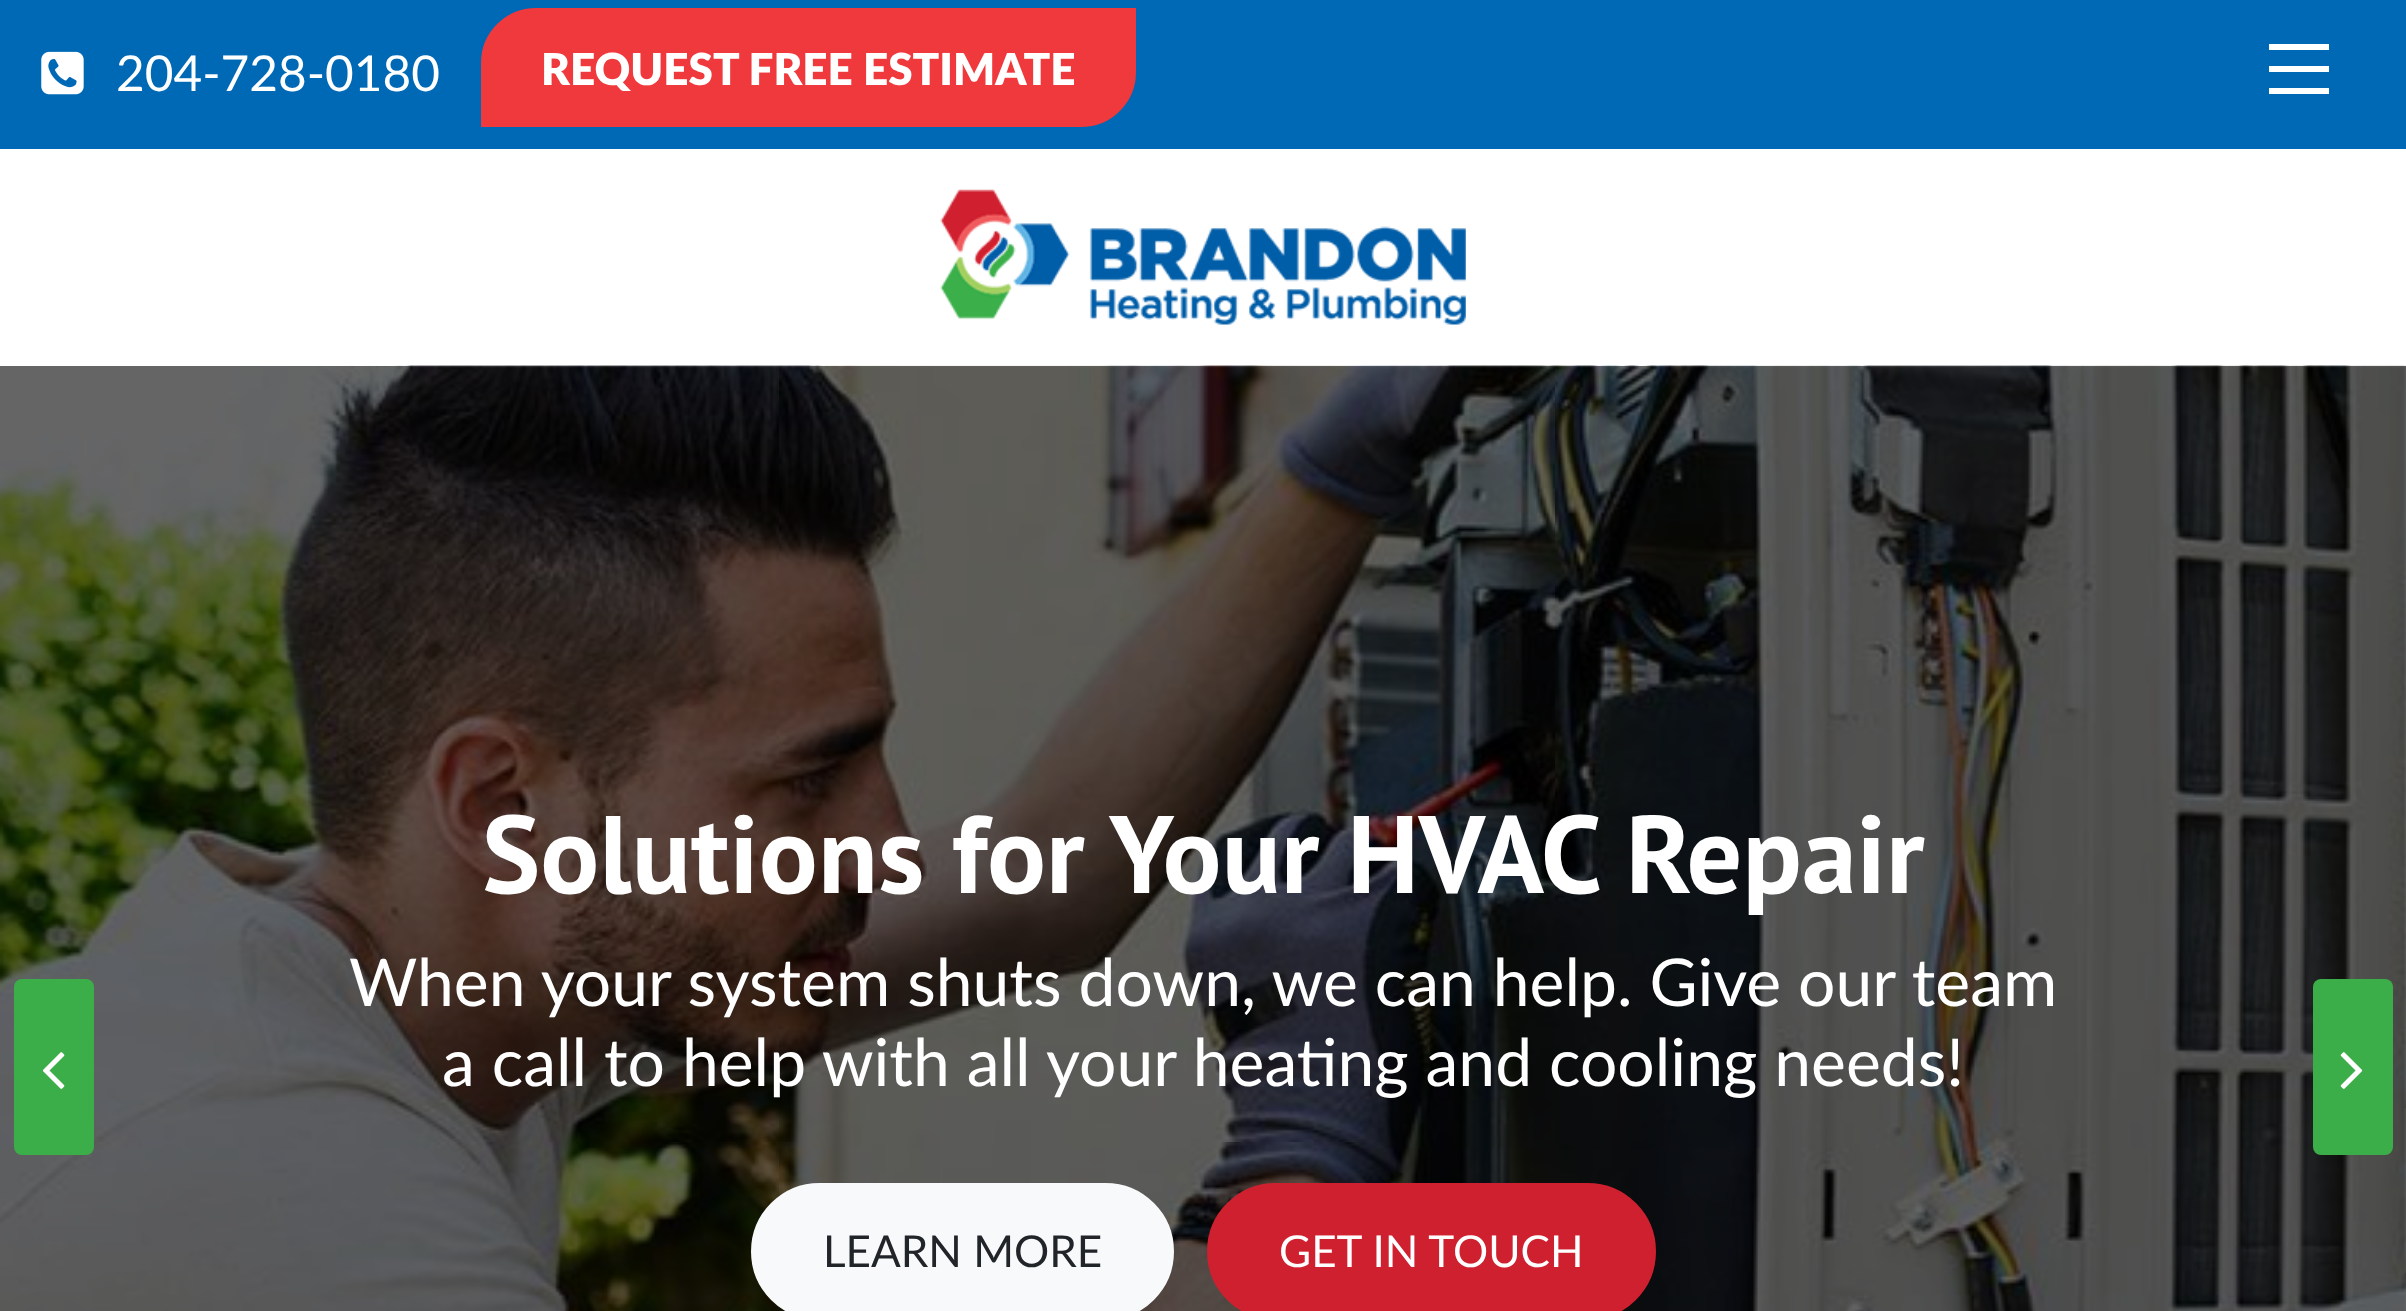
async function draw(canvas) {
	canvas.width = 2406;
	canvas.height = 1311;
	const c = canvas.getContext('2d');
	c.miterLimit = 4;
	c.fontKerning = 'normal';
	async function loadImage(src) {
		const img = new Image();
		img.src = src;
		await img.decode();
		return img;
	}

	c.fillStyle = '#fff';
	c.fillRect(0, 0, 2406, 1311);
	c.fillStyle = '#666';
	c.fillRect(0, 366, 2406, 945);
	c.fillStyle = '#0069b6';
	c.fillRect(0, 0, 2406, 149);
	c.drawImage(await loadImage('img1.png'), 41, 51, 43, 44);
	c.font = '49.5px Lato';
	c.fillStyle = '#fff';
	c.fillText('204-728-0180', 116, 91);
	c.fillStyle = '#ef393c';
	c.beginPath();
	c.roundRect(484, 11, 649, 113, [52, 0, 52, 0]);
	c.fill();
	c.strokeStyle = '#ef393c';
	c.lineWidth = 6;
	c.stroke();
	c.font = '800 44px Lato';
	c.fillStyle = '#fff';
	c.fillText('REQUEST FREE ESTIMATE', 541, 85);
	for (const [x, y, w, h, color] of [
		[2269, 66, 60, 6, '#fff'],
		[2269, 44, 60, 6, '#fff'],
		[2269, 88, 60, 6, '#fff'],
	]) {
		c.fillStyle = color;
		c.fillRect(x, y, w, h);
	}
	c.drawImage(await loadImage('img2.png'), 940, 189, 526, 136);
	c.save();
	c.beginPath();
	c.moveTo(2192, 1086);
	c.lineTo(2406, 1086);
	c.lineTo(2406, 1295);
	c.lineTo(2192, 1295);
	c.closePath();
	c.moveTo(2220, 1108);
	c.lineTo(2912, 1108);
	c.bezierCurveTo(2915.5, 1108, 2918, 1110.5, 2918, 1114);
	c.lineTo(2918, 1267);
	c.bezierCurveTo(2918, 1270.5, 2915.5, 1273, 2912, 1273);
	c.lineTo(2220, 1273);
	c.bezierCurveTo(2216.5, 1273, 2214, 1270.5, 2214, 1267);
	c.lineTo(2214, 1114);
	c.bezierCurveTo(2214, 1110.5, 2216.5, 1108, 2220, 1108);
	c.closePath();
	c.clip('evenodd');
	c.fillStyle = '#333';
	c.filter = 'blur(7px)';
	c.beginPath();
	c.roundRect(2214, 1108, 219, 165, 6);
	c.fill();
	c.filter = 'none';
	c.restore();
	c.drawImage(await loadImage('img3.png'), 0, 365, 2406, 946);
	c.font = 'bold 110px PT Sans';
	c.fillText('Solutions for Your HVAC Repair', 482, 893);
	c.font = '66px Lato';
	c.fillText('When your system shuts down, we can help. Give our team', 349, 1006);
	c.fillText('a call to help with all your heating and cooling needs!', 442, 1086);
	c.fillStyle = '#f8f9fa';
	c.beginPath();
	c.roundRect(752.5, 1184.5, 420, 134, 67);
	c.fill();
	c.strokeStyle = '#f8f9fa';
	c.lineWidth = 3;
	c.stroke();
	c.font = '44px Lato';
	c.fillStyle = '#212529';
	c.fillText('LEARN MORE', 823, 1267);
	c.fillStyle = '#ce202f';
	c.beginPath();
	c.roundRect(1208.5, 1184.5, 446, 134, 67);
	c.fill();
	c.strokeStyle = '#ce202f';
	c.stroke();
	c.fillStyle = '#fff';
	c.fillText('GET IN TOUCH', 1279, 1267);
	c.fillStyle = '#3cae49';
	c.beginPath();
	c.roundRect(14, 979, 80, 176, 8);
	c.fill();
	c.drawImage(await loadImage('img4.png'), 42, 1052, 23, 37);
	c.beginPath();
	c.roundRect(2313, 979, 80, 176, 8);
	c.fill();
	c.drawImage(await loadImage('img5.png'), 2340, 1052, 23, 37);
}

draw(document.querySelector('canvas'));
